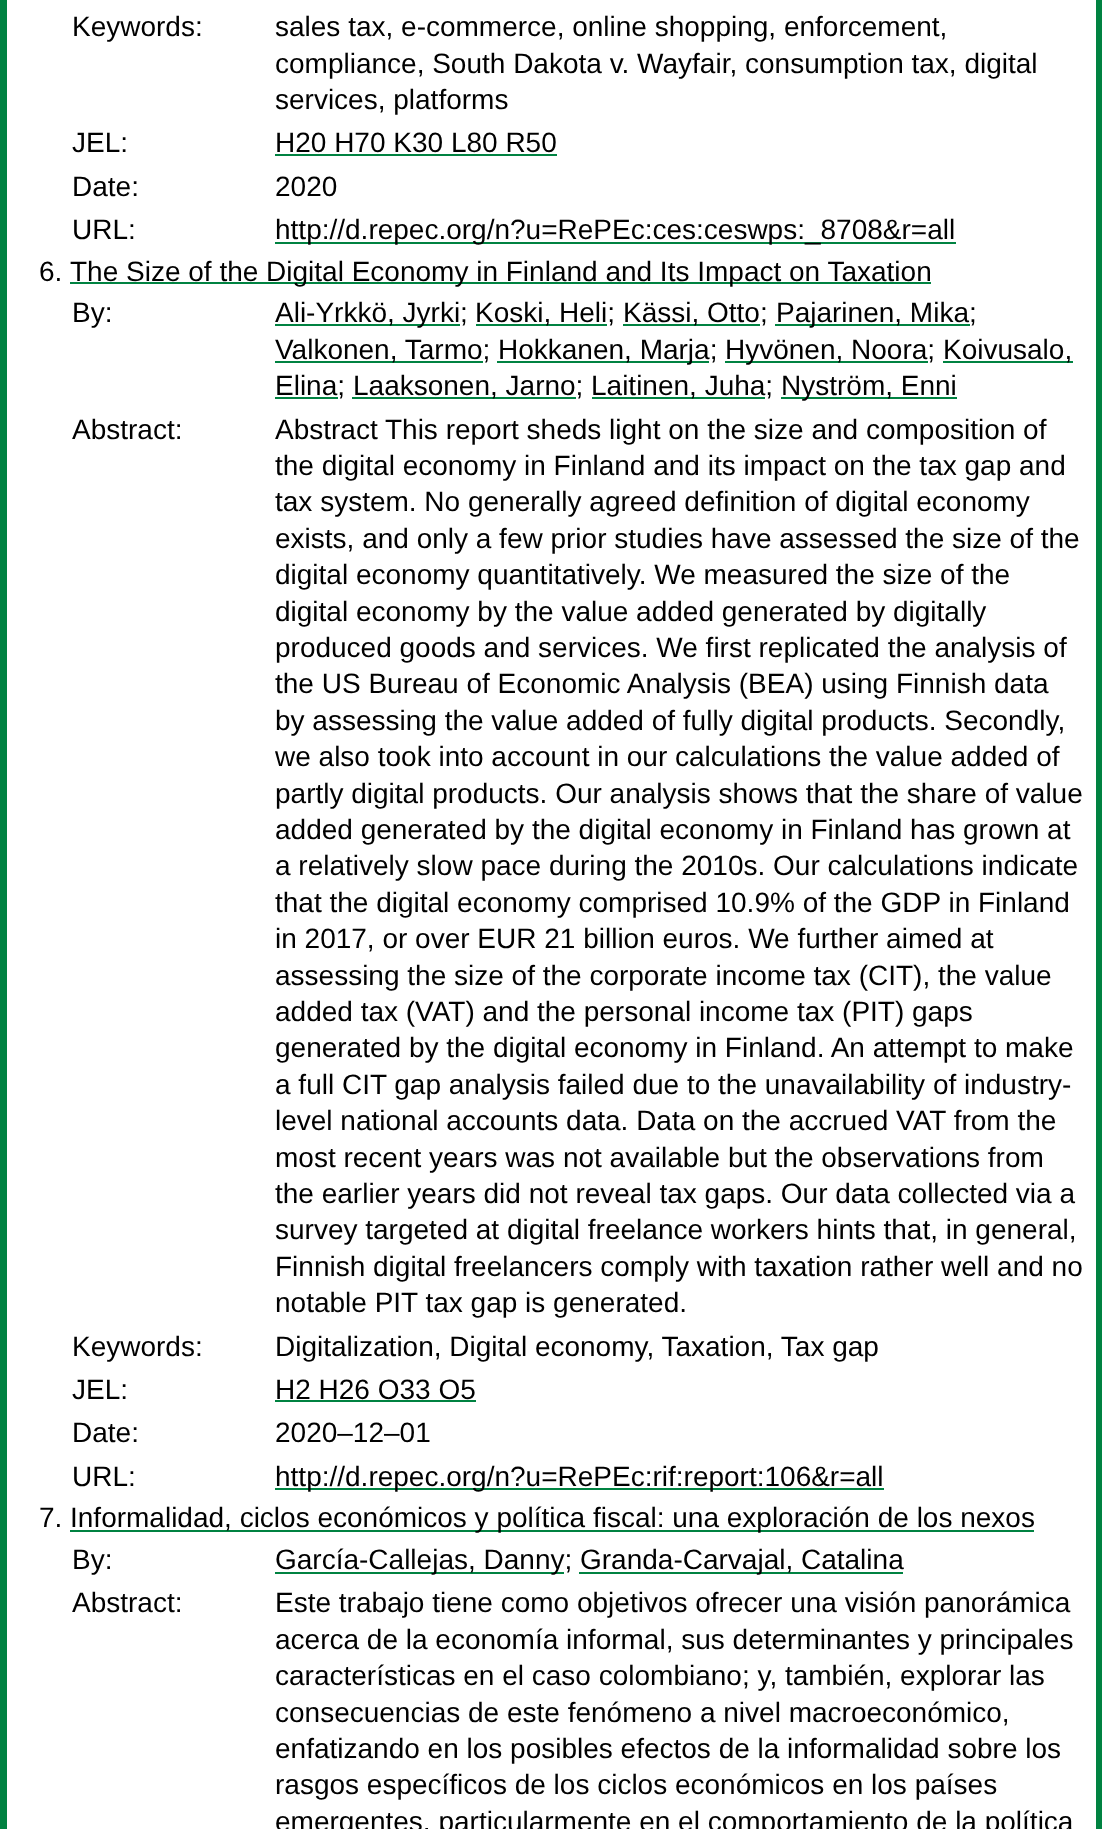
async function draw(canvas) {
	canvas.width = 1102;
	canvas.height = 1829;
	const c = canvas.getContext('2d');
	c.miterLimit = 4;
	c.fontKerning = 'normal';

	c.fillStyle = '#fff';
	c.fillRect(0, 0, 1102, 1829);
	c.strokeStyle = '#008241';
	c.lineWidth = 7;
	c.strokeRect(3.5, -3.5, 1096, 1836);
	c.font = '28px Liberation Sans';
	c.fillStyle = '#000';
	for (const [text, x, y] of [
		['Keywords:', 72, 36],
		['sales tax, e-commerce, online shopping, enforcement,', 275, 36],
		['compliance, South Dakota v. Wayfair, consumption tax, digital', 275, 73],
		['services, platforms', 275, 109],
		['JEL:', 72, 152],
		['H20 H70 K30 L80 R50', 275, 152],
	]) {
		c.fillText(text, x, y);
	}
	c.fillStyle = '#008241';
	c.fillRect(275, 154, 282, 2);
	c.fillStyle = '#000';
	for (const [text, x, y] of [
		['Date:', 72, 196],
		['2020', 275, 196],
		['URL:', 72, 239],
	]) {
		c.fillText(text, x, y);
	}
	c.fillStyle = '#008241';
	c.fillRect(275, 242, 681, 2);
	c.fillStyle = '#000';
	c.fillText('http://d.repec.org/n?u=RePEc:ces:ceswps:_8708&r=all', 275, 239);
	c.fillText('6.', 39, 281);
	c.fillStyle = '#008241';
	c.fillRect(70, 282, 861, 2);
	c.fillStyle = '#000';
	c.fillText('The Size of the Digital Economy in Finland and Its Impact on Taxation', 70, 281);
	c.fillText('By:', 72, 322);
	c.fillStyle = '#008241';
	c.fillRect(275, 324, 185, 2);
	c.fillStyle = '#000';
	c.fillText('Ali-Yrkkö, Jyrki;', 275, 322);
	c.fillStyle = '#008241';
	c.fillRect(476, 324, 131, 2);
	c.fillStyle = '#000';
	c.fillText('Koski, Heli;', 475, 322);
	c.fillStyle = '#008241';
	c.fillRect(623, 324, 137, 2);
	c.fillStyle = '#000';
	c.fillText('Kässi, Otto;', 623, 322);
	c.fillStyle = '#008241';
	c.fillRect(775, 324, 195, 2);
	c.fillStyle = '#000';
	c.fillText('Pajarinen, Mika;', 776, 322);
	c.fillStyle = '#008241';
	c.fillRect(275, 361, 208, 2);
	c.fillStyle = '#000';
	c.fillText('Valkonen, Tarmo;', 275, 359);
	c.fillStyle = '#008241';
	c.fillRect(497, 361, 212, 2);
	c.fillStyle = '#000';
	c.fillText('Hokkanen, Marja;', 498, 359);
	c.fillStyle = '#008241';
	c.fillRect(725, 361, 203, 2);
	c.fillStyle = '#000';
	c.fillText('Hyvönen, Noora;', 725, 359);
	c.fillStyle = '#008241';
	c.fillRect(943, 361, 130, 2);
	c.fillStyle = '#000';
	c.fillText('Koivusalo,', 943, 359);
	c.fillStyle = '#008241';
	c.fillRect(275, 397, 63, 2);
	c.fillStyle = '#000';
	c.fillText('Elina;', 275, 395);
	c.fillStyle = '#008241';
	c.fillRect(352, 397, 224, 2);
	c.fillStyle = '#000';
	c.fillText('Laaksonen, Jarno;', 353, 395);
	c.fillStyle = '#008241';
	c.fillRect(592, 397, 173, 2);
	c.fillStyle = '#000';
	c.fillText('Laitinen, Juha;', 591, 395);
	c.fillStyle = '#008241';
	c.fillRect(781, 397, 176, 2);
	c.fillStyle = '#000';
	for (const [text, x, y] of [
		['Nyström, Enni', 781, 395],
		['Abstract:', 72, 439],
		['Abstract This report sheds light on the size and composition of', 275, 439],
		['the digital economy in Finland and its impact on the tax gap and', 275, 475],
		['tax system. No generally agreed definition of digital economy', 275, 511],
		['exists, and only a few prior studies have assessed the size of the', 275, 548],
		['digital economy quantitatively. We measured the size of the', 275, 584],
		['digital economy by the value added generated by digitally', 275, 621],
		['produced goods and services. We first replicated the analysis of', 275, 657],
		['the US Bureau of Economic Analysis (BEA) using Finnish data', 275, 693],
		['by assessing the value added of fully digital products. Secondly,', 275, 730],
		['we also took into account in our calculations the value added of', 275, 766],
		['partly digital products. Our analysis shows that the share of value', 275, 803],
		['added generated by the digital economy in Finland has grown at', 275, 839],
		['a relatively slow pace during the 2010s. Our calculations indicate', 275, 875],
		['that the digital economy comprised 10.9% of the GDP in Finland', 275, 912],
		['in 2017, or over EUR 21 billion euros. We further aimed at', 275, 948],
		['assessing the size of the corporate income tax (CIT), the value', 275, 985],
		['added tax (VAT) and the personal income tax (PIT) gaps', 275, 1021],
		['generated by the digital economy in Finland. An attempt to make', 275, 1057],
		['a full CIT gap analysis failed due to the unavailability of industry-', 275, 1094],
		['level national accounts data. Data on the accrued VAT from the', 275, 1130],
		['most recent years was not available but the observations from', 275, 1167],
		['the earlier years did not reveal tax gaps. Our data collected via a', 275, 1203],
		['survey targeted at digital freelance workers hints that, in general,', 275, 1239],
		['Finnish digital freelancers comply with taxation rather well and no', 275, 1276],
		['notable PIT tax gap is generated.', 275, 1312],
		['Keywords:', 72, 1356],
		['Digitalization, Digital economy, Taxation, Tax gap', 275, 1356],
		['JEL:', 72, 1399],
		['H2 H26 O33 O5', 275, 1399],
	]) {
		c.fillText(text, x, y);
	}
	c.fillStyle = '#008241';
	c.fillRect(275, 1400, 201, 2);
	c.fillStyle = '#000';
	for (const [text, x, y] of [
		['Date:', 72, 1442],
		['2020–12–01', 275, 1442],
		['URL:', 72, 1486],
	]) {
		c.fillText(text, x, y);
	}
	c.fillStyle = '#008241';
	c.fillRect(275, 1488, 609, 2);
	c.fillStyle = '#000';
	c.fillText('http://d.repec.org/n?u=RePEc:rif:report:106&r=all', 275, 1486);
	c.fillText('7.', 39, 1527);
	c.fillStyle = '#008241';
	c.fillRect(70, 1530, 964, 2);
	c.fillStyle = '#000';
	c.fillText('Informalidad, ciclos económicos y política fiscal: una exploración de los nexos', 70, 1527);
	c.fillText('By:', 72, 1569);
	c.fillStyle = '#008241';
	c.fillRect(275, 1572, 289, 2);
	c.fillStyle = '#000';
	c.fillText('García-Callejas, Danny;', 275, 1569);
	c.fillStyle = '#008241';
	c.fillRect(579, 1572, 324, 2);
	c.fillStyle = '#000';
	for (const [text, x, y] of [
		['Granda-Carvajal, Catalina', 580, 1569],
		['Abstract:', 72, 1612],
		['Este trabajo tiene como objetivos ofrecer una visión panorámica', 275, 1612],
		['acerca de la economía informal, sus determinantes y principales', 275, 1649],
		['características en el caso colombiano; y, también, explorar las', 275, 1685],
		['consecuencias de este fenómeno a nivel macroeconómico,', 275, 1722],
		['enfatizando en los posibles efectos de la informalidad sobre los', 275, 1758],
		['rasgos específicos de los ciclos económicos en los países', 275, 1794],
		['emergentes, particularmente en el comportamiento de la política', 275, 1831],
	]) {
		c.fillText(text, x, y);
	}
}

draw(document.querySelector('canvas'));
